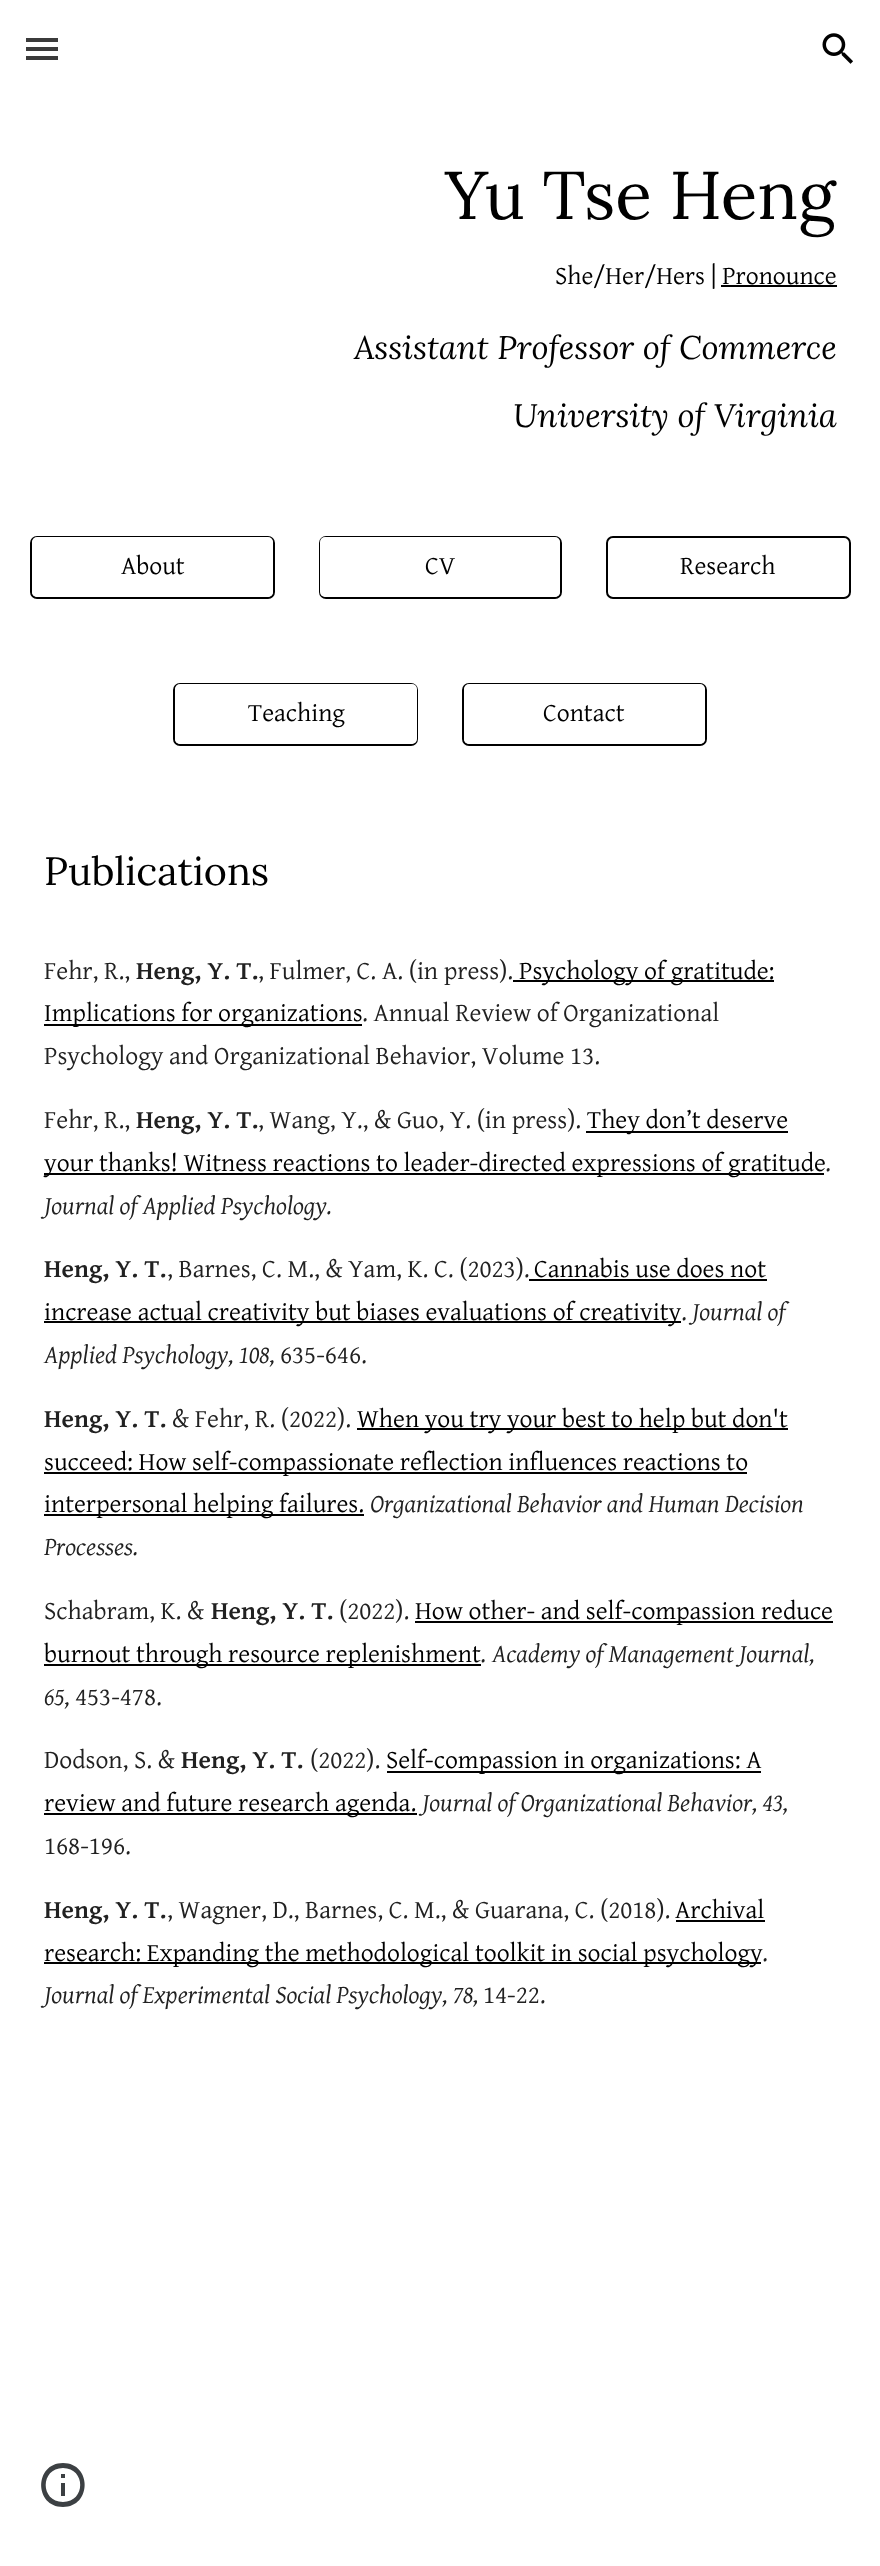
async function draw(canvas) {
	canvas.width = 880;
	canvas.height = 2566;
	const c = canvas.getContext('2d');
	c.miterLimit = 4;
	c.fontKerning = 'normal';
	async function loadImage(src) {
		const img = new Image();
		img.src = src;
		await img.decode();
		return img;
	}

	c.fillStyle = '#fff';
	c.fillRect(0, 0, 880, 2566);
	for (const [x, y, w, h, color] of [
		[26, 38, 32, 4, '#3b3b3b'],
		[26, 47, 32, 4, '#3b3b3b'],
		[26, 56, 32, 4, '#3b3b3b'],
	]) {
		c.fillStyle = color;
		c.fillRect(x, y, w, h);
	}
	c.drawImage(await loadImage('img1.png'), 822, 33, 31, 31);
	c.font = '67.5px Lora';
	c.fillStyle = '#000';
	c.fillText('Yu Tse Heng', 445, 219);
	c.font = '25.7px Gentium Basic';
	c.fillText('She/Her/Hers | Pronounce', 555, 284);
	c.fillRect(721, 285, 116, 2);
	c.font = 'italic 32.7px Lora';
	c.fillText('Assistant Professor of Commerce', 354, 359);
	c.fillText('University of Virginia', 513, 427);
	c.beginPath();
	c.roundRect(31, 537, 243, 61, 6);
	c.strokeStyle = '#000';
	c.lineWidth = 2;
	c.stroke();
	c.fillStyle = '#fff';
	c.beginPath();
	c.roundRect(32, 537, 241, 60, 5);
	c.fill();
	c.font = '25.7px Gentium Basic';
	c.fillStyle = '#000';
	c.fillText('About', 121, 574);
	c.beginPath();
	c.roundRect(320, 537, 241, 61, 6);
	c.stroke();
	c.fillStyle = '#fff';
	c.beginPath();
	c.roundRect(320, 537, 240, 60, 5);
	c.fill();
	c.fillStyle = '#000';
	c.fillText('CV', 425, 574);
	c.beginPath();
	c.roundRect(607, 537, 243, 61, 6);
	c.stroke();
	c.fillText('Research', 680, 574);
	c.beginPath();
	c.roundRect(174, 684, 243, 61, 6);
	c.stroke();
	c.fillStyle = '#fff';
	c.beginPath();
	c.roundRect(175, 684, 242, 60, 5);
	c.fill();
	c.fillStyle = '#000';
	c.fillText('Teaching', 248, 721);
	c.beginPath();
	c.roundRect(463, 684, 243, 61, 6);
	c.stroke();
	c.fillStyle = '#fff';
	c.beginPath();
	c.roundRect(464, 684, 241, 60, 5);
	c.fill();
	c.fillStyle = '#000';
	c.fillText('Contact', 543, 721);
	c.font = '39.5px Lora';
	c.fillText('Publications', 44, 885);
	c.font = '25.7px Gentium Basic';
	c.fillStyle = '#212121';
	c.fillText('Fehr, R.,', 44, 979);
	c.font = 'bold 25.7px Gentium Basic';
	c.fillText('Heng, Y. T.', 136, 979);
	c.font = '25.7px Gentium Basic';
	c.fillText(', Fulmer, C. A. (in press).', 258, 979);
	c.fillStyle = '#000';
	c.fillRect(513, 980, 261, 2);
	c.fillText('Psychology of gratitude:', 519, 979);
	c.fillRect(44, 1024, 318, 2);
	c.fillText('Implications for organizations', 44, 1021);
	c.fillStyle = '#212121';
	for (const [text, x, y] of [
		['. Annual Review of Organizational', 362, 1021],
		['Psychology and Organizational Behavior, Volume 13.', 44, 1064],
		['Fehr, R.,', 44, 1128],
	]) {
		c.fillText(text, x, y);
	}
	c.font = 'bold 25.7px Gentium Basic';
	c.fillText('Heng, Y. T.', 136, 1128);
	c.font = '25.7px Gentium Basic';
	c.fillText(', Wang, Y., & Guo, Y. (in press).', 258, 1128);
	c.fillStyle = '#000';
	c.fillRect(586, 1131, 202, 2);
	c.fillText('They don’t deserve', 587, 1128);
	c.fillRect(44, 1173, 780, 2);
	c.fillText('your thanks! Witness reactions to leader-directed expressions of gratitude', 44, 1171);
	c.fillStyle = '#212121';
	c.fillText('.', 825, 1171);
	c.font = 'italic 25.7px Gentium Basic';
	c.fillText('Journal of Applied Psychology.', 44, 1214);
	c.font = 'bold 25.7px Gentium Basic';
	c.fillText('Heng, Y. T.', 44, 1277);
	c.font = '25.7px Gentium Basic';
	c.fillText(', Barnes, C. M., & Yam, K. C. (2023).', 167, 1277);
	c.fillStyle = '#000';
	c.fillText('Cannabis use does not', 534, 1277);
	c.fillRect(529, 1279, 238, 2);
	c.fillRect(44, 1321, 637, 2);
	c.fillText('increase actual creativity but biases evaluations of creativity', 44, 1320);
	c.fillStyle = '#212121';
	c.fillText('.', 681, 1320);
	c.font = 'italic 25.7px Gentium Basic';
	c.fillText('Journal of', 692, 1320);
	c.fillText('Applied Psychology, 108,', 44, 1363);
	c.font = '25.7px Gentium Basic';
	c.fillText('635-646.', 280, 1363);
	c.font = 'bold 25.7px Gentium Basic';
	c.fillText('Heng, Y. T.', 44, 1427);
	c.font = '25.7px Gentium Basic';
	c.fillText('& Fehr, R. (2022).', 172, 1427);
	c.fillStyle = '#000';
	c.fillRect(357, 1428, 431, 2);
	c.fillText('When you try your best to help but don\'t', 357, 1427);
	c.fillRect(44, 1472, 703, 2);
	c.fillText('succeed: How self-compassionate reflection influences reactions to', 44, 1470);
	c.fillRect(44, 1514, 320, 2);
	c.fillText('interpersonal helping failures.', 44, 1512);
	c.font = 'italic 25.7px Gentium Basic';
	c.fillStyle = '#212121';
	c.fillText('Organizational Behavior and Human Decision', 370, 1512);
	c.fillText('Processes.', 44, 1555);
	c.font = '25.7px Gentium Basic';
	c.fillText('Schabram, K. &', 44, 1619);
	c.font = 'bold 25.7px Gentium Basic';
	c.fillText('Heng, Y. T.', 211, 1619);
	c.font = '25.7px Gentium Basic';
	c.fillText('(2022).', 339, 1619);
	c.fillStyle = '#000';
	c.fillRect(415, 1621, 418, 2);
	c.fillText('How other- and self-compassion reduce', 415, 1619);
	c.fillRect(44, 1664, 437, 2);
	c.fillText('burnout through resource replenishment', 44, 1662);
	c.fillStyle = '#212121';
	c.fillText('.', 480, 1662);
	c.font = 'italic 25.7px Gentium Basic';
	c.fillText('Academy of Management Journal,', 492, 1662);
	c.fillText('65,', 44, 1705);
	c.font = '25.7px Gentium Basic';
	c.fillText('453-478.', 75, 1705);
	c.fillText('Dodson, S. &', 44, 1768);
	c.font = 'bold 25.7px Gentium Basic';
	c.fillText('Heng, Y. T.', 181, 1768);
	c.font = '25.7px Gentium Basic';
	c.fillText('(2022).', 310, 1768);
	c.fillStyle = '#000';
	c.fillRect(387, 1771, 374, 2);
	c.fillText('Self-compassion in organizations: A', 386, 1768);
	c.fillRect(44, 1813, 373, 2);
	c.fillText('review and future research agenda.', 44, 1811);
	c.font = 'italic 25.7px Gentium Basic';
	c.fillStyle = '#212121';
	c.fillText('Journal of Organizational Behavior, 43,', 422, 1811);
	c.font = '25.7px Gentium Basic';
	c.fillText('168-196.', 44, 1854);
	c.font = 'bold 25.7px Gentium Basic';
	c.fillText('Heng, Y. T.', 44, 1918);
	c.font = '25.7px Gentium Basic';
	c.fillText(', Wagner, D., Barnes, C. M., & Guarana, C. (2018).', 167, 1918);
	c.fillStyle = '#000';
	c.fillText('Archival', 675, 1918);
	c.fillRect(676, 1920, 89, 2);
	c.fillRect(44, 1962, 717, 2);
	c.fillText('research: Expanding the methodological toolkit in social psychology', 44, 1961);
	c.fillStyle = '#212121';
	c.fillText('.', 762, 1961);
	c.font = 'italic 25.7px Gentium Basic';
	c.fillText('Journal of Experimental Social Psychology, 78,', 44, 2003);
	c.font = '25.7px Gentium Basic';
	c.fillText('14-22.', 483, 2003);
	c.fillStyle = '#3c4043';
	c.beginPath();
	c.moveTo(61, 2496);
	c.lineTo(65, 2496);
	c.lineTo(65, 2483);
	c.lineTo(61, 2483);
	c.closePath();
	c.moveTo(63, 2463);
	c.bezierCurveTo(34, 2463, 34, 2507, 63, 2507);
	c.bezierCurveTo(92, 2507, 92, 2463, 63, 2463);
	c.closePath();
	c.moveTo(63, 2502);
	c.bezierCurveTo(40, 2502, 40, 2468, 63, 2468);
	c.bezierCurveTo(86, 2468, 86, 2502, 63, 2502);
	c.closePath();
	c.moveTo(61, 2478);
	c.lineTo(65, 2478);
	c.lineTo(65, 2474);
	c.lineTo(61, 2474);
	c.closePath();
	c.fill();
}

draw(document.querySelector('canvas'));
